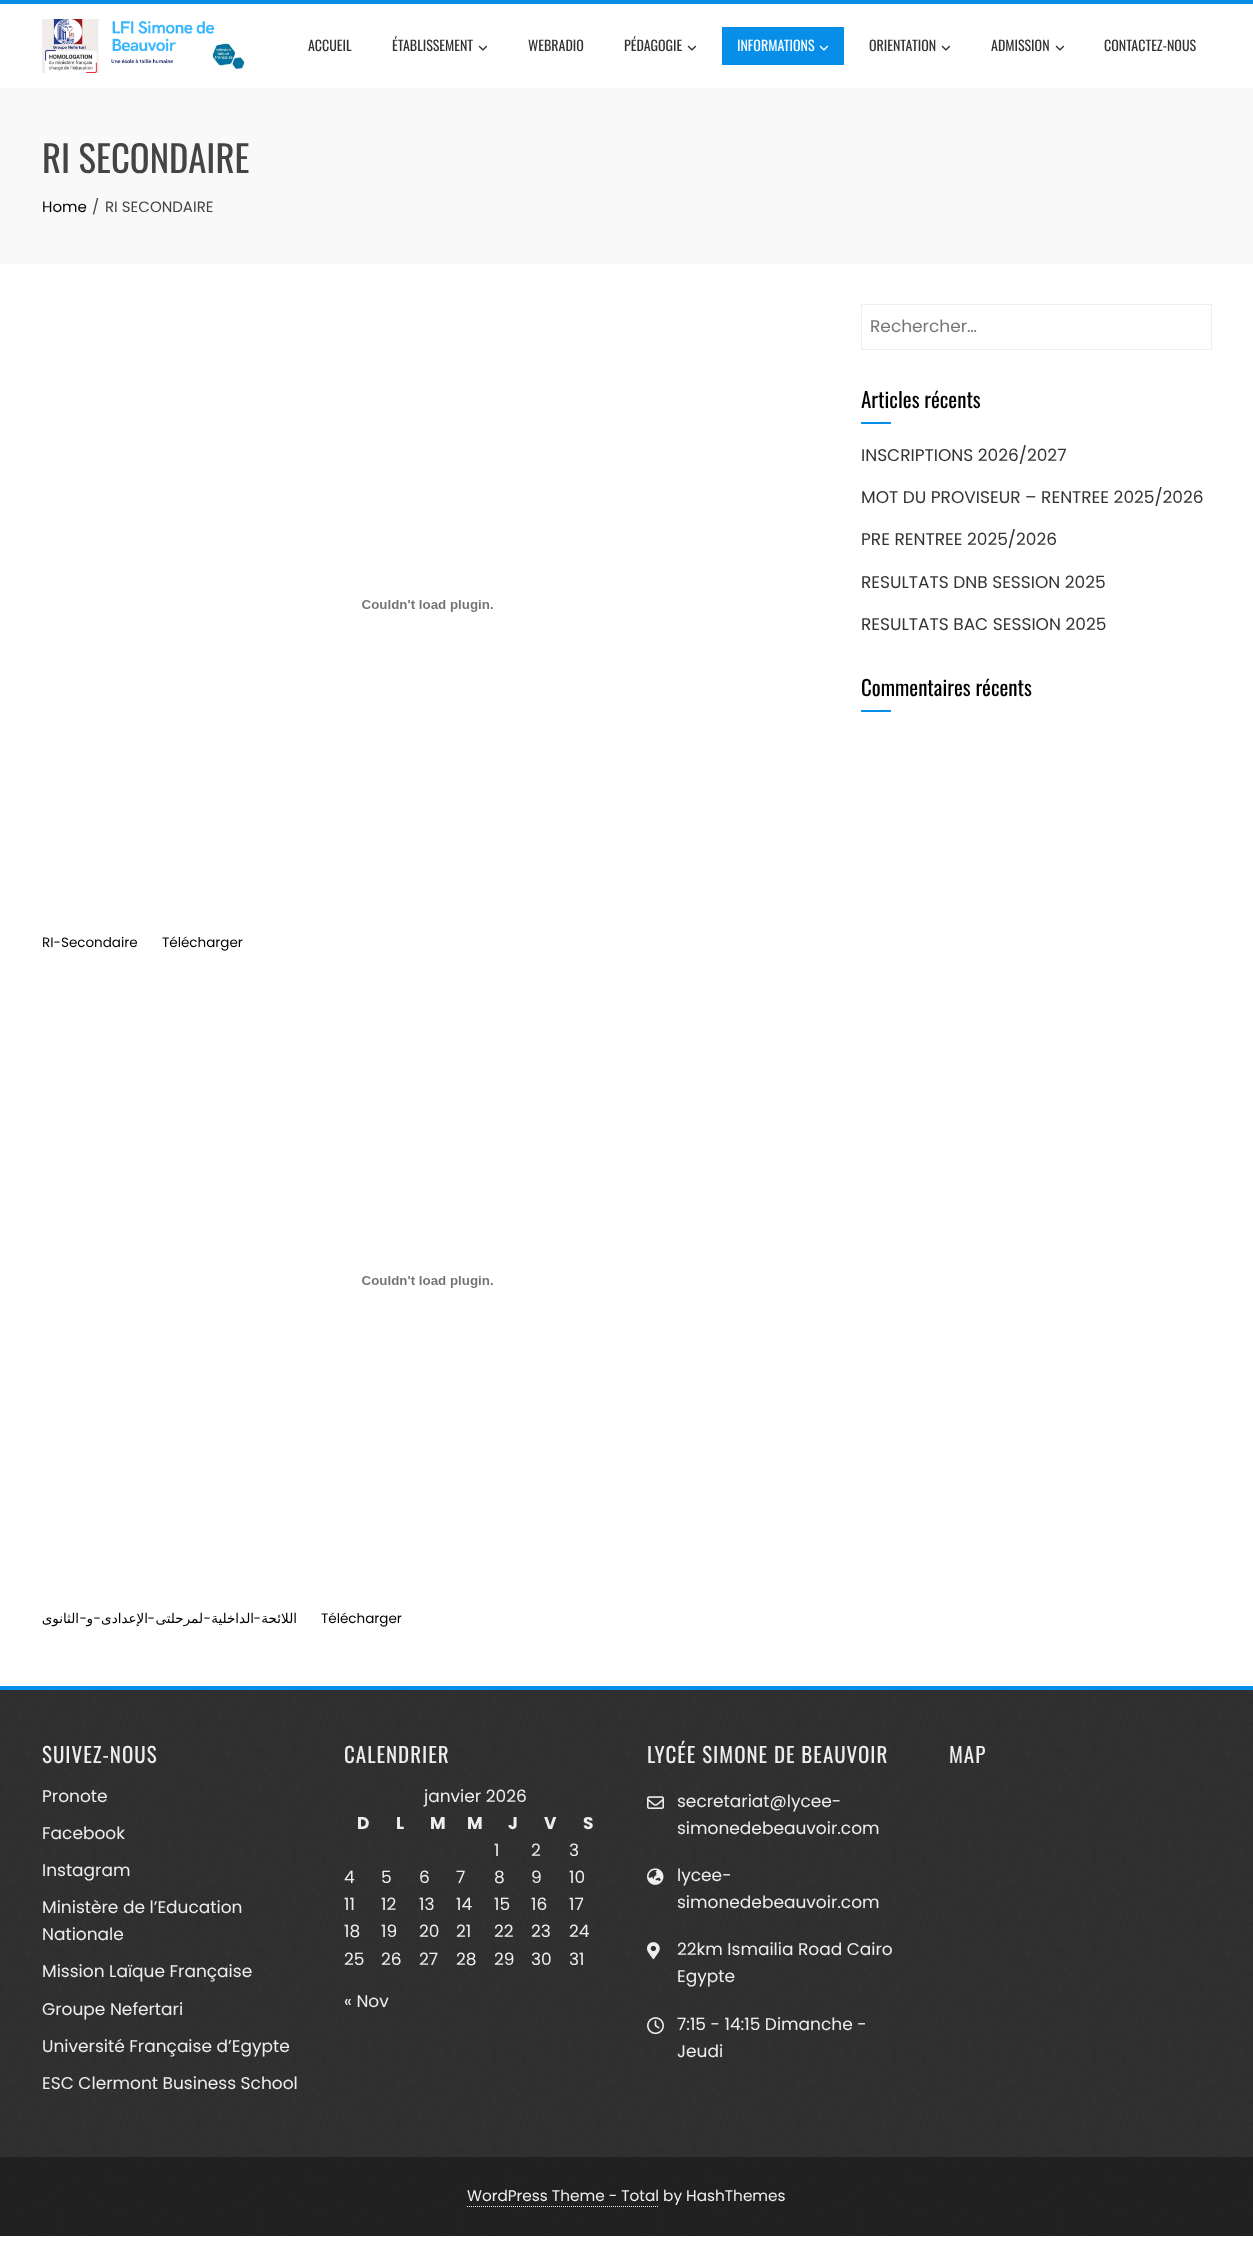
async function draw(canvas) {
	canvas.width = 1253;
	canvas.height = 2250;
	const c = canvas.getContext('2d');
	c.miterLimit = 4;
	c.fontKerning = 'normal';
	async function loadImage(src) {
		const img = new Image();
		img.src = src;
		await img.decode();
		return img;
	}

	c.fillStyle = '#fff';
	c.fillRect(0, 0, 1253, 2250);
	c.fillStyle = '#068ee8';
	c.fillRect(0, 0, 1253, 4);
	c.drawImage(await loadImage('img1.png'), 42, 19, 203, 54);
	c.font = '14px Oswald';
	c.fillStyle = '#333';
	c.fillText('ACCUEIL', 308, 51);
	c.fillText('ÉTABLISSEMENT', 392, 51);
	c.drawImage(await loadImage('img2.png'), 478, 45, 10, 6);
	c.fillText('WEBRADIO', 528, 51);
	c.fillText('PÉDAGOGIE', 624, 51);
	c.drawImage(await loadImage('img2.png'), 687, 45, 10, 6);
	c.fillStyle = '#068ee8';
	c.fillRect(722, 27, 122, 38);
	c.fillStyle = '#fff';
	c.fillText('INFORMATIONS', 737, 51);
	c.drawImage(await loadImage('img3.png'), 819, 45, 10, 6);
	c.fillStyle = '#333';
	c.fillText('ORIENTATION', 869, 51);
	c.drawImage(await loadImage('img2.png'), 941, 45, 10, 6);
	c.fillText('ADMISSION', 991, 51);
	c.drawImage(await loadImage('img2.png'), 1055, 45, 10, 6);
	c.fillText('CONTACTEZ-NOUS', 1104, 51);
	c.fillStyle = '#f9f9f9';
	c.fillRect(0, 88, 1253, 176);
	c.font = '36.75px Oswald';
	c.fillStyle = '#444';
	c.fillText('RI SECONDAIRE', 42, 173);
	c.font = '15px Poppins';
	c.fillStyle = '#000';
	c.fillText('Home', 42, 212);
	c.fillStyle = '#444';
	c.fillText('/', 92, 212);
	c.fillText('RI SECONDAIRE', 105, 212);
	c.strokeStyle = '#eee';
	c.strokeRect(861.5, 304.5, 350, 45);
	c.font = '17px Poppins';
	c.fillStyle = '#757575';
	c.fillText('Rechercher…', 870, 332);
	c.font = '21px Oswald';
	c.fillStyle = '#000';
	c.fillText('Articles récents', 861, 408);
	c.fillStyle = '#068ee8';
	c.fillRect(861, 422, 30, 2);
	c.font = '17px Poppins';
	c.fillStyle = '#333';
	for (const [text, x, y] of [
		['INSCRIPTIONS 2026/2027', 861, 461],
		['MOT DU PROVISEUR – RENTREE 2025/2026', 861, 503],
		['PRE RENTREE 2025/2026', 861, 545],
		['RESULTATS DNB SESSION 2025', 861, 588],
		['RESULTATS BAC SESSION 2025', 861, 630],
	]) {
		c.fillText(text, x, y);
	}
	c.font = '21px Oswald';
	c.fillStyle = '#000';
	c.fillText('Commentaires récents', 861, 696);
	c.fillStyle = '#068ee8';
	c.fillRect(861, 710, 30, 2);
	c.drawImage(await loadImage('img4.png'), 362, 600, 131, 12);
	c.font = '13.5px Poppins';
	c.fillStyle = '#000';
	c.fillText('RI-Secondaire', 42, 947);
	c.fillText('Télécharger', 162, 947);
	c.drawImage(await loadImage('img4.png'), 362, 1276, 131, 12);
	c.direction = 'rtl';
	c.font = '13.5px DejaVu Sans';
	c.fillText('الثانوى', 79, 1623);
	c.font = '13.5px Poppins';
	c.fillText('-', 87, 1623);
	c.font = '13.5px DejaVu Sans';
	c.fillText('و', 93, 1623);
	c.font = '13.5px Poppins';
	c.fillText('-', 101, 1623);
	c.font = '13.5px DejaVu Sans';
	c.fillText('الإعدادى', 148, 1623);
	c.font = '13.5px Poppins';
	c.fillText('-', 155, 1623);
	c.font = '13.5px DejaVu Sans';
	c.fillText('لمرحلتى', 203, 1623);
	c.font = '13.5px Poppins';
	c.fillText('-', 211, 1623);
	c.font = '13.5px DejaVu Sans';
	c.fillText('الداخلية', 254, 1623);
	c.font = '13.5px Poppins';
	c.fillText('-', 261, 1623);
	c.font = '13.5px DejaVu Sans';
	c.fillText('اللائحة', 297, 1623);
	c.direction = 'ltr';
	c.font = '13.5px Poppins';
	c.fillText('Télécharger', 321, 1623);
	c.drawImage(await loadImage('img5.png'), 0, 1690, 1253, 546);
	c.fillStyle = '#068ee8';
	c.fillRect(0, 1686, 1253, 4);
	c.letterSpacing = '1px';
	c.font = '21px Oswald';
	c.fillStyle = '#eee';
	c.fillText('SUIVEZ-NOUS', 42, 1763);
	c.letterSpacing = '0px';
	c.font = '17px Poppins';
	for (const [text, x, y] of [
		['Pronote', 42, 1802],
		['Facebook', 42, 1839],
		['Instagram', 42, 1876],
		['Ministère de l’Education', 42, 1913],
		['Nationale', 42, 1940],
		['Mission Laïque Française', 42, 1977],
		['Groupe Nefertari', 42, 2015],
		['Université Française d’Egypte', 42, 2052],
		['ESC Clermont Business School', 42, 2089],
	]) {
		c.fillText(text, x, y);
	}
	c.letterSpacing = '1px';
	c.font = '21px Oswald';
	c.fillText('CALENDRIER', 344, 1763);
	c.letterSpacing = '0px';
	c.font = '17px Poppins';
	c.fillText('janvier 2026', 424, 1802);
	c.font = 'bold 17px Poppins';
	for (const [text, x, y] of [
		['D', 357, 1829],
		['L', 396, 1829],
		['M', 430, 1829],
		['M', 467, 1829],
		['J', 508, 1829],
		['V', 544, 1829],
		['S', 583, 1829],
	]) {
		c.fillText(text, x, y);
	}
	c.font = '17px Poppins';
	for (const [text, x, y] of [
		['1', 494, 1856],
		['2', 531, 1856],
		['3', 569, 1856],
		['4', 344, 1883],
		['5', 381, 1883],
		['6', 419, 1883],
		['7', 456, 1883],
		['8', 494, 1883],
		['9', 531, 1883],
		['10', 569, 1883],
		['11', 344, 1910],
		['12', 381, 1910],
		['13', 419, 1910],
		['14', 456, 1910],
		['15', 494, 1910],
		['16', 531, 1910],
		['17', 569, 1910],
		['18', 344, 1937],
		['19', 381, 1937],
		['20', 419, 1937],
		['21', 456, 1937],
		['22', 494, 1937],
		['23', 531, 1937],
		['24', 569, 1937],
		['25', 344, 1965],
		['26', 381, 1965],
		['27', 419, 1965],
		['28', 456, 1965],
		['29', 494, 1965],
		['30', 531, 1965],
		['31', 569, 1965],
		['« Nov', 344, 2007],
	]) {
		c.fillText(text, x, y);
	}
	c.letterSpacing = '1px';
	c.font = '21px Oswald';
	c.fillText('LYCÉE SIMONE DE BEAUVOIR', 647, 1763);
	c.drawImage(await loadImage('img6.png'), 647, 1796, 17, 13);
	c.letterSpacing = '0px';
	c.font = '17px Poppins';
	c.fillText('secretariat@lycee-', 677, 1807);
	c.fillText('simonedebeauvoir.com', 677, 1834);
	c.drawImage(await loadImage('img7.png'), 647, 1868, 17, 17);
	c.fillText('lycee-', 677, 1881);
	c.fillText('simonedebeauvoir.com', 677, 1908);
	c.drawImage(await loadImage('img8.png'), 647, 1942, 13, 18);
	c.fillText('22km Ismailia Road Cairo', 677, 1955);
	c.fillText('Egypte', 677, 1982);
	c.drawImage(await loadImage('img9.png'), 647, 2017, 17, 18);
	c.fillText('7:15 - 14:15 Dimanche -', 677, 2030);
	c.fillText('Jeudi', 677, 2057);
	c.letterSpacing = '1px';
	c.font = '21px Oswald';
	c.fillText('MAP', 949, 1763);
	c.fillStyle = '#0000004d';
	c.fillRect(0, 2157, 1253, 79);
	c.letterSpacing = '0px';
	c.font = '15.3px Poppins';
	c.fillStyle = '#eee';
	c.fillText('WordPress Theme - Total by HashThemes', 467, 2201);
	c.beginPath();
	c.moveTo(467, 2206.5);
	c.lineTo(659, 2206.5);
	c.setLineDash([1, 1]);
	c.stroke();
}

draw(document.querySelector('canvas'));
